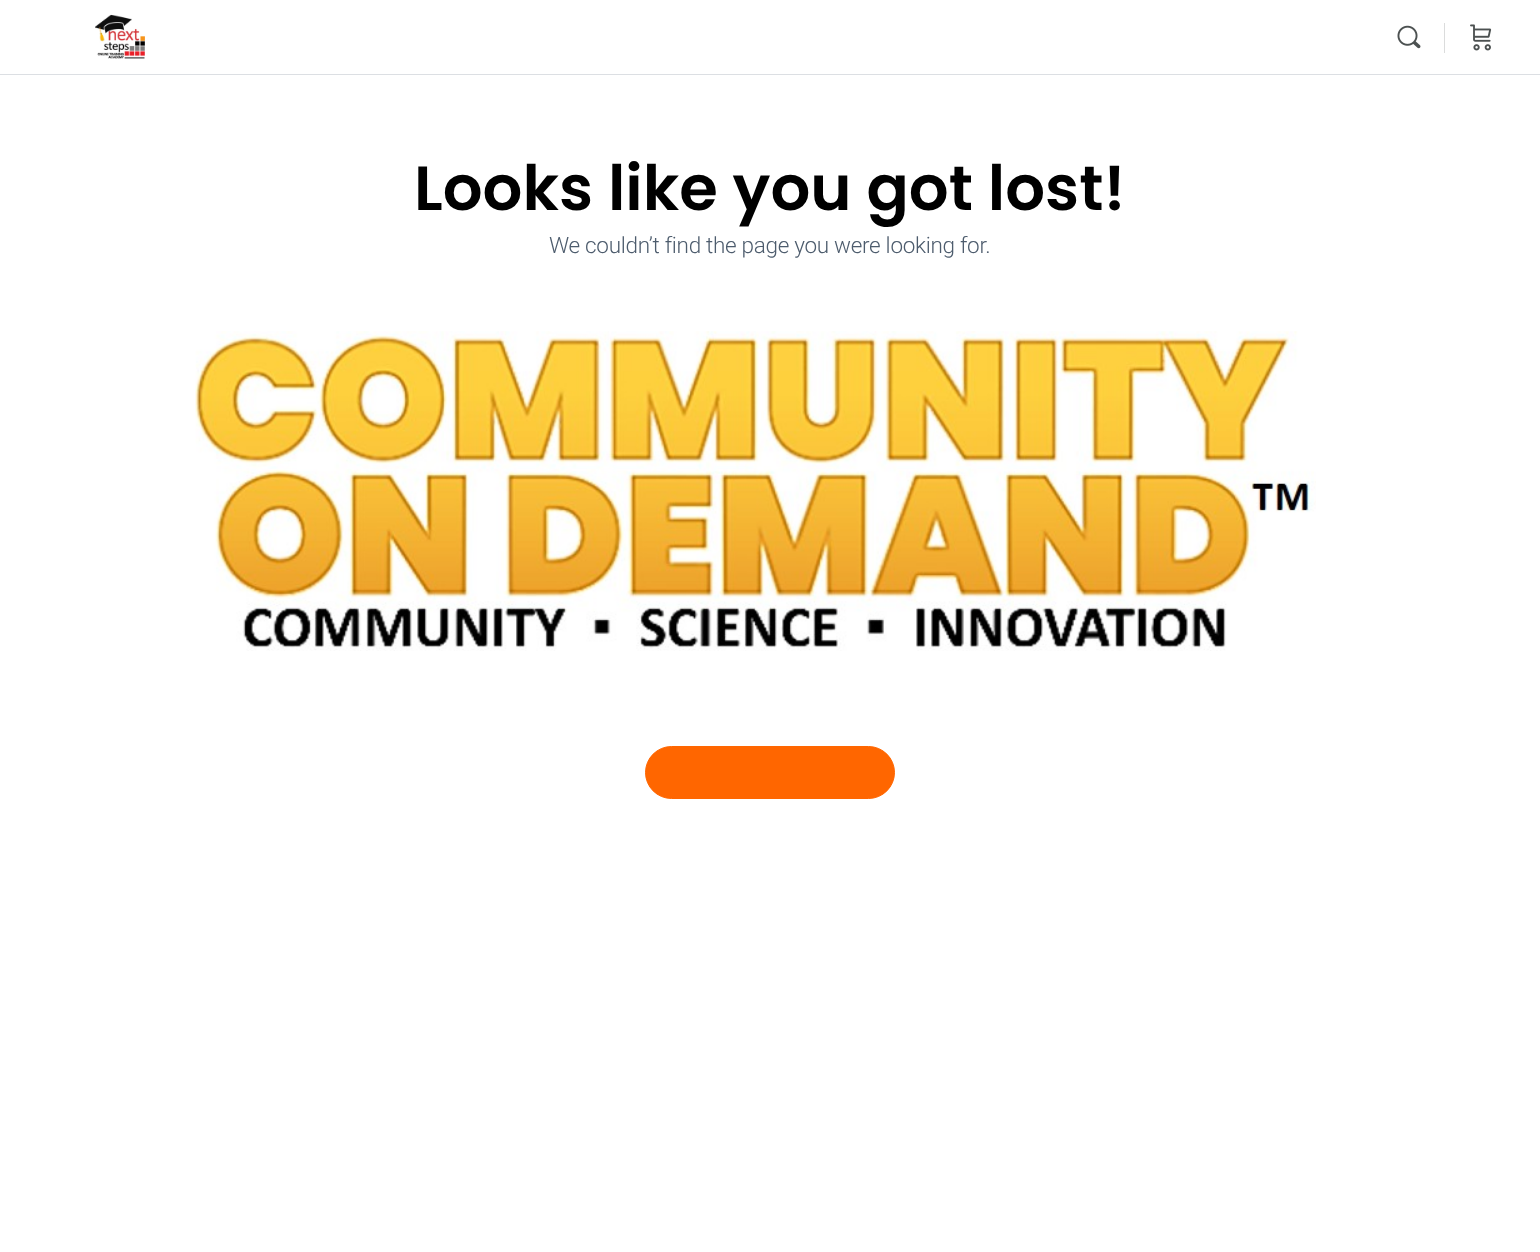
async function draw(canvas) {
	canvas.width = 1540;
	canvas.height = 1252;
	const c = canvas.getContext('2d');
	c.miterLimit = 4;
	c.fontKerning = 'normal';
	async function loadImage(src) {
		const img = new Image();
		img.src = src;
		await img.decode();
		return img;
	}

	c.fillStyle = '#fff';
	c.fillRect(0, 0, 1540, 1252);
	c.fillStyle = '#dcdfe3';
	c.fillRect(0, 74, 1540, 1);
	c.drawImage(await loadImage('img1.png'), 95, 14, 50, 45);
	c.drawImage(await loadImage('img2.png'), 1397, 25, 24, 24);
	c.fillStyle = '#dbdcdc';
	c.fillRect(1444, 23, 1, 30);
	c.drawImage(await loadImage('img3.png'), 1470, 24, 22, 27);
	c.font = '600 62.5px Poppins';
	c.fillStyle = '#000';
	c.fillText('Looks like you got lost!', 414, 210);
	c.letterSpacing = '-0.3px';
	c.font = '300 22.5px Roboto';
	c.fillStyle = '#4d5c6d';
	c.fillText('We couldn’t find the page you were looking for.', 549, 253);
	c.drawImage(await loadImage('img4.png'), 195, 331, 1121, 320);
	c.fillStyle = '#f60';
	c.beginPath();
	c.roundRect(645.5, 746.5, 249, 52, 26);
	c.fill();
	c.strokeStyle = '#f60';
	c.stroke();
}

draw(document.querySelector('canvas'));
